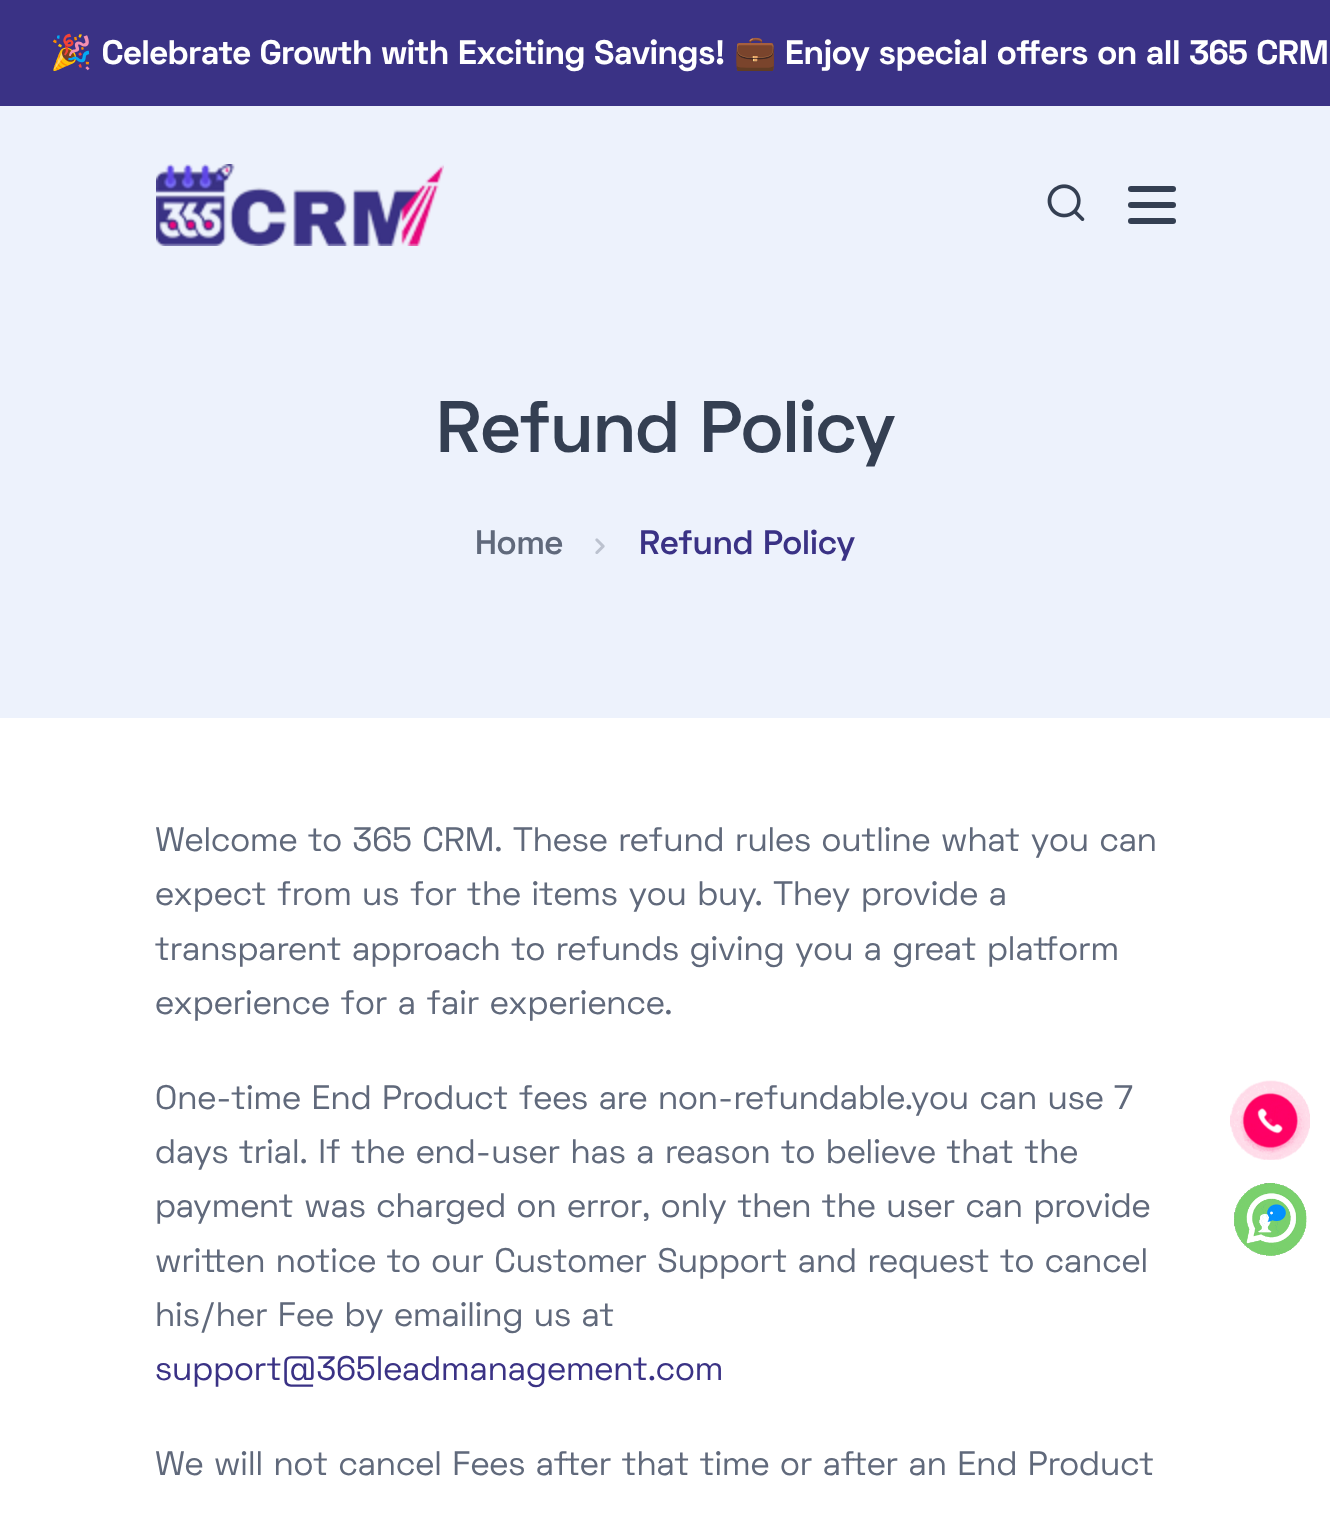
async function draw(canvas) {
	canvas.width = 1330;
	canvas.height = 1520;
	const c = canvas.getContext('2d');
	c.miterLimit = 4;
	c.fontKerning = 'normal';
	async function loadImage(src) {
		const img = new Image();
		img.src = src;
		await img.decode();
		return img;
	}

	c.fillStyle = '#fff';
	c.fillRect(0, 0, 1330, 1520);
	c.fillStyle = '#3a3285';
	c.fillRect(0, 0, 1330, 106);
	c.font = 'bold 34px Noto Color Emoji';
	c.fillStyle = '#fff';
	c.fillText('🎉', 50, 64);
	c.font = 'bold 34px Space Grotesk';
	c.fillText('Celebrate Growth with Exciting Savings!', 102, 64);
	c.font = 'bold 34px Noto Color Emoji';
	c.fillText('💼', 734, 64);
	c.font = 'bold 34px Space Grotesk';
	c.fillText('Enjoy special offers on all 365 CRM', 785, 64);
	c.fillStyle = '#edf2fc';
	c.fillRect(0, 106, 1330, 612);
	c.drawImage(await loadImage('img1.png'), 156, 164, 288, 82);
	c.drawImage(await loadImage('img2.png'), 1047, 184, 38, 37);
	c.fillStyle = '#343f52';
	c.beginPath();
	c.roundRect(1128, 186, 48, 6, 3);
	c.fill();
	c.beginPath();
	c.roundRect(1128, 202, 48, 6, 3);
	c.fill();
	c.beginPath();
	c.roundRect(1128, 218, 48, 6, 3);
	c.fill();
	c.letterSpacing = '-0.4px';
	c.font = '600 73px Space Grotesk';
	c.fillText('Refund Policy', 436, 452);
	c.letterSpacing = '0px';
	c.font = '600 34px Space Grotesk';
	c.fillStyle = '#60697b';
	c.fillText('Home', 475, 554);
	c.drawImage(await loadImage('img3.png'), 595, 538, 10, 16);
	c.fillStyle = '#3a3285';
	c.fillText('Refund Policy', 639, 554);
	c.font = '34px Space Grotesk';
	c.fillStyle = '#60697b';
	for (const [text, x, y] of [
		['Welcome to 365 CRM. These refund rules outline what you can', 155, 851],
		['expect from us for the items you buy. They provide a', 155, 905],
		['transparent approach to refunds giving you a great platform', 155, 960],
		['experience for a fair experience.', 155, 1014],
		['One-time End Product fees are non-refundable.you can use 7', 155, 1109],
		['days trial. If the end-user has a reason to believe that the', 155, 1163],
		['payment was charged on error, only then the user can provide', 155, 1217],
		['written notice to our Customer Support and request to cancel', 155, 1272],
		['his/her Fee by emailing us at', 155, 1326],
	]) {
		c.fillText(text, x, y);
	}
	c.fillStyle = '#3a3285';
	c.fillText('support@365leadmanagement.com', 155, 1380);
	c.fillStyle = '#60697b';
	c.fillText('We will not cancel Fees after that time or after an End Product', 155, 1475);
	c.drawImage(await loadImage('img4.png'), 1230, 1080, 80, 80);
	c.drawImage(await loadImage('img5.png'), 1234, 1183, 73, 73);
}

draw(document.querySelector('canvas'));
